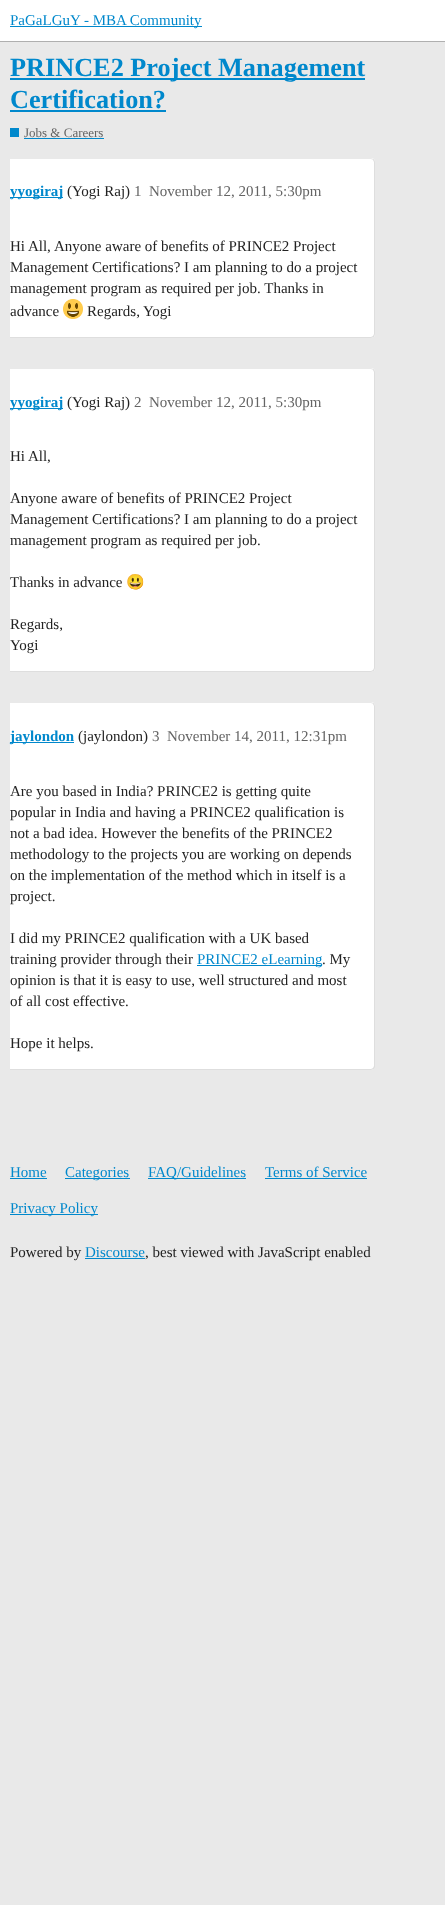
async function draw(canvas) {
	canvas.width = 445;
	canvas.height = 1905;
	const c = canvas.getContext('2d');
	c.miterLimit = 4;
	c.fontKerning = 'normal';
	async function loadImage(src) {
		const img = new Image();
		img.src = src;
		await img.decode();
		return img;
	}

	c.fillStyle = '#e9e9e9';
	c.fillRect(0, 0, 445, 1905);
	for (const [x, y, w, h, color] of [
		[0, 0, 445, 41, '#fff'],
		[0, 41, 445, 1, '#afafaf'],
		[10, 26, 192, 1, '#08c'],
	]) {
		c.fillStyle = color;
		c.fillRect(x, y, w, h);
	}
	c.font = '15px Liberation Serif';
	c.fillText('PaGaLGuY - MBA Community', 10, 25);
	c.fillRect(10, 78, 355, 2);
	c.font = 'bold 26.25px Liberation Serif';
	c.fillText('PRINCE2 Project Management', 10, 76);
	c.fillText('Certification?', 10, 108);
	c.fillRect(10, 110, 156, 2);
	c.fillRect(10, 128, 9, 9);
	c.font = '13px Liberation Serif';
	c.fillStyle = '#646464';
	c.fillText('Jobs & Careers', 24, 137);
	c.fillStyle = '#08c';
	c.fillRect(24, 138, 80, 1);
	c.fillStyle = '#fff';
	c.beginPath();
	c.roundRect(10, 158, 365, 180, [0, 4, 4, 0]);
	c.fill();
	c.fillStyle = '#e9e9e9';
	c.beginPath();
	c.moveTo(10, 158);
	c.lineTo(10, 159);
	c.lineTo(371, 159);
	c.lineTo(373, 160);
	c.lineTo(374, 159);
	c.lineTo(371, 158);
	c.closePath();
	c.fill();
	c.fillStyle = '#22222226';
	c.beginPath();
	c.moveTo(373, 336);
	c.lineTo(374, 334);
	c.lineTo(374, 162);
	c.lineTo(373, 160);
	c.lineTo(374, 159);
	c.bezierCurveTo(374, 160, 375, 161, 375, 162);
	c.lineTo(375, 334);
	c.bezierCurveTo(375, 335, 374, 336, 374, 337);
	c.closePath();
	c.fill();
	c.beginPath();
	c.moveTo(10, 337);
	c.lineTo(10, 338);
	c.lineTo(371, 338);
	c.lineTo(374, 337);
	c.lineTo(373, 336);
	c.lineTo(371, 337);
	c.closePath();
	c.fill();
	c.fillStyle = '#08c';
	c.fillRect(10, 197, 53, 1);
	c.font = 'bold 15px Liberation Serif';
	c.fillText('yyogiraj', 10, 196);
	c.font = '15px Liberation Serif';
	c.fillStyle = '#222';
	c.fillText('(Yogi Raj)', 67, 196);
	c.fillStyle = '#646464';
	c.fillText('1', 134, 196);
	c.fillText('November 12, 2011, 5:30pm', 149, 196);
	c.fillStyle = '#222';
	for (const [text, x, y] of [
		['Hi All,', 10, 251],
		['Anyone aware of benefits of PRINCE2 Project', 54, 251],
		['Management Certifications? I am planning to do a project', 10, 272],
		['management program as required per job. Thanks in', 10, 293],
		['advance', 10, 316],
	]) {
		c.fillText(text, x, y);
	}
	c.drawImage(await loadImage('img1.png'), 63, 299, 20, 20);
	c.fillText('Regards,', 87, 316);
	c.fillText('Yogi', 143, 316);
	c.fillStyle = '#fff';
	c.beginPath();
	c.roundRect(10, 368, 365, 304, [0, 4, 4, 0]);
	c.fill();
	c.fillStyle = '#e9e9e9';
	c.beginPath();
	c.moveTo(10, 368);
	c.lineTo(10, 369);
	c.lineTo(371, 369);
	c.lineTo(373, 370);
	c.lineTo(374, 369);
	c.lineTo(371, 368);
	c.closePath();
	c.fill();
	c.fillStyle = '#22222226';
	c.beginPath();
	c.moveTo(373, 670);
	c.lineTo(374, 668);
	c.lineTo(374, 372);
	c.lineTo(373, 370);
	c.lineTo(374, 369);
	c.bezierCurveTo(374, 370, 375, 371, 375, 372);
	c.lineTo(375, 668);
	c.bezierCurveTo(375, 669, 374, 670, 374, 671);
	c.closePath();
	c.fill();
	c.beginPath();
	c.moveTo(10, 671);
	c.lineTo(10, 672);
	c.lineTo(371, 672);
	c.lineTo(374, 671);
	c.lineTo(373, 670);
	c.lineTo(371, 671);
	c.closePath();
	c.fill();
	c.fillStyle = '#08c';
	c.fillRect(10, 408, 53, 1);
	c.font = 'bold 15px Liberation Serif';
	c.fillText('yyogiraj', 10, 407);
	c.font = '15px Liberation Serif';
	c.fillStyle = '#222';
	c.fillText('(Yogi Raj)', 67, 407);
	c.fillStyle = '#646464';
	c.fillText('2', 134, 407);
	c.fillText('November 12, 2011, 5:30pm', 149, 407);
	c.fillStyle = '#222';
	for (const [text, x, y] of [
		['Hi All,', 10, 461],
		['Anyone aware of benefits of PRINCE2 Project', 10, 503],
		['Management Certifications? I am planning to do a project', 10, 524],
		['management program as required per job.', 10, 545],
		['Thanks in advance', 10, 587],
	]) {
		c.fillText(text, x, y);
	}
	c.font = '15px Noto Color Emoji';
	c.fillText('😃', 126, 587);
	c.font = '15px Liberation Serif';
	c.fillText('Regards,', 10, 629);
	c.fillText('Yogi', 10, 650);
	c.fillStyle = '#fff';
	c.beginPath();
	c.roundRect(10, 702, 365, 368, [0, 4, 4, 0]);
	c.fill();
	c.fillStyle = '#e9e9e9';
	c.beginPath();
	c.moveTo(10, 702);
	c.lineTo(10, 703);
	c.lineTo(371, 703);
	c.lineTo(373, 704);
	c.lineTo(374, 703);
	c.lineTo(371, 702);
	c.closePath();
	c.fill();
	c.fillStyle = '#22222226';
	c.beginPath();
	c.moveTo(373, 1068);
	c.lineTo(374, 1066);
	c.lineTo(374, 706);
	c.lineTo(373, 704);
	c.lineTo(374, 703);
	c.lineTo(375, 706);
	c.lineTo(375, 1067);
	c.lineTo(374, 1069);
	c.closePath();
	c.fill();
	c.beginPath();
	c.moveTo(10, 1069);
	c.lineTo(10, 1070);
	c.lineTo(371, 1070);
	c.lineTo(374, 1069);
	c.lineTo(373, 1068);
	c.lineTo(371, 1069);
	c.closePath();
	c.fill();
	c.fillStyle = '#08c';
	c.fillRect(10, 742, 64, 1);
	c.font = 'bold 15px Liberation Serif';
	c.fillText('jaylondon', 10, 741);
	c.font = '15px Liberation Serif';
	c.fillStyle = '#222';
	c.fillText('(jaylondon)', 78, 741);
	c.fillStyle = '#646464';
	c.fillText('3', 152, 741);
	c.fillText('November 14, 2011, 12:31pm', 167, 741);
	c.fillStyle = '#222';
	for (const [text, x, y] of [
		['Are you based in India? PRINCE2 is getting quite', 10, 796],
		['popular in India and having a PRINCE2 qualification is', 10, 817],
		['not a bad idea. However the benefits of the PRINCE2', 10, 838],
		['methodology to the projects you are working on depends', 10, 859],
		['on the implementation of the method which in itself is a', 10, 880],
		['project.', 10, 901],
		['I did my PRINCE2 qualification with a UK based', 10, 943],
		['training provider through their', 10, 964],
	]) {
		c.fillText(text, x, y);
	}
	c.fillStyle = '#08c';
	c.fillRect(197, 965, 125, 1);
	c.fillText('PRINCE2 eLearning', 197, 964);
	c.fillStyle = '#222';
	for (const [text, x, y] of [
		['. My', 322, 964],
		['opinion is that it is easy to use, well structured and most', 10, 985],
		['of all cost effective.', 10, 1006],
		['Hope it helps.', 10, 1048],
	]) {
		c.fillText(text, x, y);
	}
	c.fillStyle = '#08c';
	c.fillText('Home', 10, 1177);
	c.fillRect(10, 1178, 37, 1);
	c.fillRect(65, 1178, 65, 1);
	c.fillText('Categories', 65, 1177);
	c.fillRect(148, 1178, 98, 1);
	c.fillText('FAQ/Guidelines', 148, 1177);
	c.fillText('Terms of Service', 265, 1177);
	c.fillRect(265, 1178, 102, 1);
	c.fillRect(10, 1214, 88, 1);
	c.fillText('Privacy Policy', 10, 1213);
	c.fillStyle = '#222';
	c.fillText('Powered by', 10, 1257);
	c.fillStyle = '#08c';
	c.fillText('Discourse', 85, 1257);
	c.fillRect(85, 1258, 60, 1);
	c.fillStyle = '#222';
	c.fillText(', best viewed with JavaScript enabled', 145, 1257);
}

draw(document.querySelector('canvas'));
